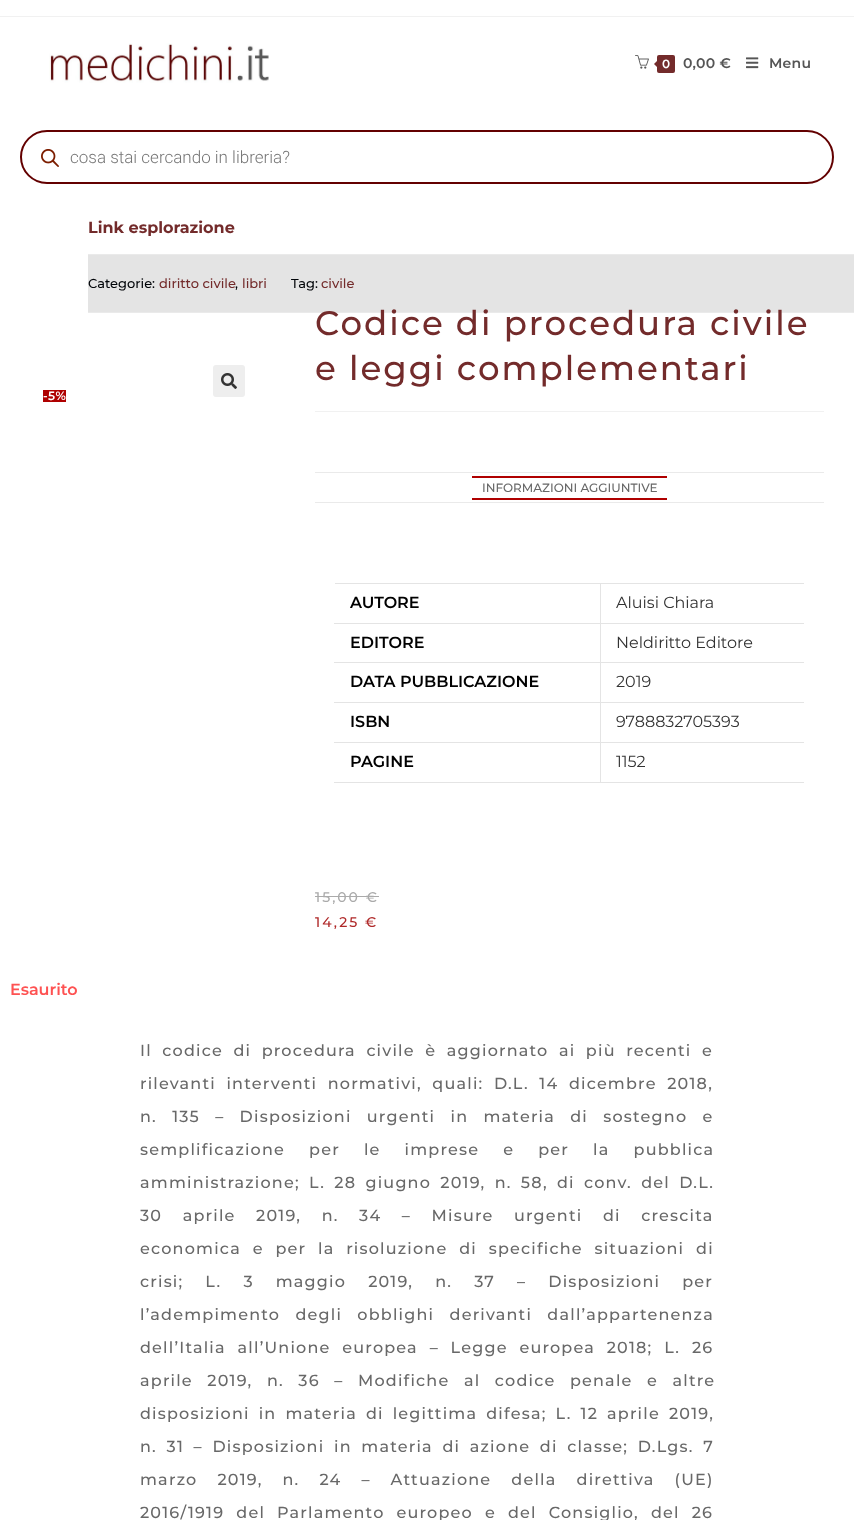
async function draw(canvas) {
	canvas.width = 854;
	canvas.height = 1520;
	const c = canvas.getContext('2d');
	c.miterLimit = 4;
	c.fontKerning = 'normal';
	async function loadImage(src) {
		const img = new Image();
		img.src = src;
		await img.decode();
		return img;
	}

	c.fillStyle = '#fff';
	c.fillRect(0, 0, 854, 1520);
	c.fillStyle = '#f1f1f1';
	c.fillRect(0, 16, 854, 1);
	c.drawImage(await loadImage('img1.png'), 49, 43, 220, 40);
	c.drawImage(await loadImage('img2.png'), 635, 55, 14, 14);
	c.fillStyle = '#732b2b';
	c.beginPath();
	c.roundRect(657, 55, 18, 18, 2);
	c.fill();
	c.beginPath();
	c.moveTo(659, 59);
	c.lineTo(659, 69);
	c.lineTo(654, 64);
	c.closePath();
	c.fill();
	c.letterSpacing = '0.25px';
	c.font = '600 12px Montserrat';
	c.fillStyle = '#fff';
	c.fillText('0', 662, 68);
	c.font = '600 14px Montserrat';
	c.fillStyle = '#555';
	c.fillText('0,00 €', 683, 68);
	c.drawImage(await loadImage('img3.png'), 746, 57, 13, 12);
	c.fillText('Menu', 769, 68);
	c.beginPath();
	c.roundRect(21, 131, 812, 52, 26);
	c.strokeStyle = '#630000';
	c.lineWidth = 2;
	c.stroke();
	c.drawImage(await loadImage('img4.png'), 41, 149, 18, 18);
	c.letterSpacing = '0px';
	c.font = '300 17px Roboto';
	c.fillStyle = '#777';
	c.fillText('cosa stai cercando in libreria?', 70, 163);
	c.font = 'bold 16px Montserrat';
	c.fillStyle = '#732b2b';
	c.fillText('Link esplorazione', 88, 233);
	for (const [x, y, w, h, color] of [
		[88, 255, 766, 57, '#e4e4e4'],
		[88, 254, 766, 1, '#eaeaea'],
		[88, 312, 766, 1, '#eaeaea'],
	]) {
		c.fillStyle = color;
		c.fillRect(x, y, w, h);
	}
	c.font = '500 13px Montserrat';
	c.fillStyle = '#000408';
	c.fillText('Categorie:', 88, 288);
	c.fillStyle = '#732b2b';
	c.fillText('diritto civile', 159, 288);
	c.fillStyle = '#000408';
	c.fillText(',', 235, 288);
	c.fillStyle = '#732b2b';
	c.fillText('libri', 242, 288);
	c.fillStyle = '#000408';
	c.fillText('Tag:', 291, 288);
	c.fillStyle = '#732b2b';
	c.fillText('civile', 321, 288);
	c.fillStyle = '#af0000';
	c.fillRect(43, 390, 23, 12);
	c.letterSpacing = '0.5px';
	c.font = '600 12px Montserrat';
	c.fillStyle = '#fff';
	c.fillText('-5%', 43, 400);
	c.fillStyle = '#eee';
	c.beginPath();
	c.roundRect(213, 365, 32, 32, 3);
	c.fill();
	c.drawImage(await loadImage('img5.png'), 221, 373, 16, 16);
	c.fillStyle = '#f1f1f1';
	c.fillRect(315, 411, 509, 1);
	c.letterSpacing = '2px';
	c.font = '500 34px Montserrat';
	c.fillStyle = '#732b2b';
	c.fillText('Codice di procedura civile', 315, 335);
	c.fillText('e leggi complementari', 315, 380);
	for (const [x, y, w, h, color] of [
		[315, 472, 509, 1, '#eaeaea'],
		[315, 502, 509, 1, '#eaeaea'],
		[472, 476, 195, 2, '#af0000'],
		[472, 498, 195, 2, '#af0000'],
	]) {
		c.fillStyle = color;
		c.fillRect(x, y, w, h);
	}
	c.letterSpacing = '0px';
	c.font = '500 12px Montserrat';
	c.fillStyle = '#686868';
	c.fillText('INFORMAZIONI AGGIUNTIVE', 482, 492);
	for (const [x, y, w, h, color] of [
		[335, 583, 469, 1, '#e4e4e4'],
		[600, 782, 204, 1, '#e4e4e4'],
		[600, 742, 1, 41, '#e4e4e4'],
		[600, 742, 204, 1, '#e4e4e4'],
		[600, 702, 1, 41, '#e4e4e4'],
		[600, 702, 204, 1, '#e4e4e4'],
		[600, 662, 1, 41, '#e4e4e4'],
		[600, 662, 204, 1, '#e4e4e4'],
		[600, 623, 1, 40, '#e4e4e4'],
		[600, 623, 204, 1, '#e4e4e4'],
		[600, 583, 1, 41, '#e4e4e4'],
		[334, 623, 267, 1, '#e4e4e4'],
	]) {
		c.fillStyle = color;
		c.fillRect(x, y, w, h);
	}
	c.font = '600 16px Montserrat';
	c.fillStyle = '#000';
	c.fillText('AUTORE', 350, 608);
	c.font = '16px Montserrat';
	c.fillStyle = '#333';
	c.fillText('Aluisi Chiara', 616, 608);
	c.fillStyle = '#e4e4e4';
	c.fillRect(334, 662, 267, 1);
	c.font = '600 16px Montserrat';
	c.fillStyle = '#000';
	c.fillText('EDITORE', 350, 648);
	c.font = '16px Montserrat';
	c.fillStyle = '#333';
	c.fillText('Neldiritto Editore', 616, 648);
	c.fillStyle = '#e4e4e4';
	c.fillRect(334, 702, 267, 1);
	c.font = '600 16px Montserrat';
	c.fillStyle = '#000';
	c.fillText('DATA PUBBLICAZIONE', 350, 687);
	c.font = '16px Montserrat';
	c.fillStyle = '#333';
	c.fillText('2019', 616, 687);
	c.fillStyle = '#e4e4e4';
	c.fillRect(334, 742, 267, 1);
	c.font = '600 16px Montserrat';
	c.fillStyle = '#000';
	c.fillText('ISBN', 350, 727);
	c.font = '16px Montserrat';
	c.fillStyle = '#333';
	c.fillText('9788832705393', 616, 727);
	c.fillStyle = '#e4e4e4';
	c.fillRect(334, 782, 267, 1);
	c.font = '600 16px Montserrat';
	c.fillStyle = '#000';
	c.fillText('PAGINE', 350, 767);
	c.font = '16px Montserrat';
	c.fillStyle = '#333';
	c.fillText('1152', 616, 767);
	c.letterSpacing = '2px';
	c.font = '500 14px Montserrat';
	c.fillStyle = '#aaa';
	c.fillText('15,00 €', 315, 902);
	c.fillRect(315, 896, 64, 1);
	c.fillStyle = '#af2828';
	c.fillText('14,25 €', 315, 927);
	c.letterSpacing = '0px';
	c.font = '600 16px Montserrat';
	c.fillStyle = '#fe5252';
	c.fillText('Esaurito', 10, 995);
	c.letterSpacing = '1.2px';
	c.wordSpacing = '5px';
	c.font = '500 16px Montserrat';
	c.fillStyle = '#686868';
	c.fillText('Il codice di procedura civile è aggiornato ai più recenti e', 140, 1056);
	c.fillText('rilevanti interventi normativi, quali: D.L. 14 dicembre 2018,', 140, 1089);
	c.wordSpacing = '9.75px';
	c.fillText('n. 135 – Disposizioni urgenti in materia di sostegno e', 140, 1122);
	c.wordSpacing = '18.5px';
	c.fillText('semplificazione per le imprese e per la pubblica', 140, 1155);
	c.wordSpacing = '3.75px';
	c.fillText('amministrazione; L. 28 giugno 2019, n. 58, di conv. del D.L.', 140, 1188);
	c.wordSpacing = '15px';
	c.fillText('30 aprile 2019, n. 34 – Misure urgenti di crescita', 140, 1221);
	c.wordSpacing = '6.25px';
	c.fillText('economica e per la risoluzione di specifiche situazioni di', 140, 1254);
	c.wordSpacing = '16.5px';
	c.fillText('crisi; L. 3 maggio 2019, n. 37 – Disposizioni per', 140, 1287);
	c.wordSpacing = '9.75px';
	c.fillText('l’adempimento degli obblighi derivanti dall’appartenenza', 140, 1320);
	c.wordSpacing = '6.25px';
	c.fillText('dell’Italia all’Unione europea – Legge europea 2018; L. 26', 140, 1353);
	c.wordSpacing = '9px';
	c.fillText('aprile 2019, n. 36 – Modifiche al codice penale e altre', 140, 1386);
	c.wordSpacing = '3.5px';
	c.fillText('disposizioni in materia di legittima difesa; L. 12 aprile 2019,', 140, 1419);
	c.wordSpacing = '4.1px';
	c.fillText('n. 31 – Disposizioni in materia di azione di classe; D.Lgs. 7', 140, 1452);
	c.wordSpacing = '14.5px';
	c.fillText('marzo 2019, n. 24 – Attuazione della direttiva (UE)', 140, 1485);
	c.wordSpacing = '6.5px';
	c.fillText('2016/1919 del Parlamento europeo e del Consiglio, del 26', 140, 1518);
}

draw(document.querySelector('canvas'));
